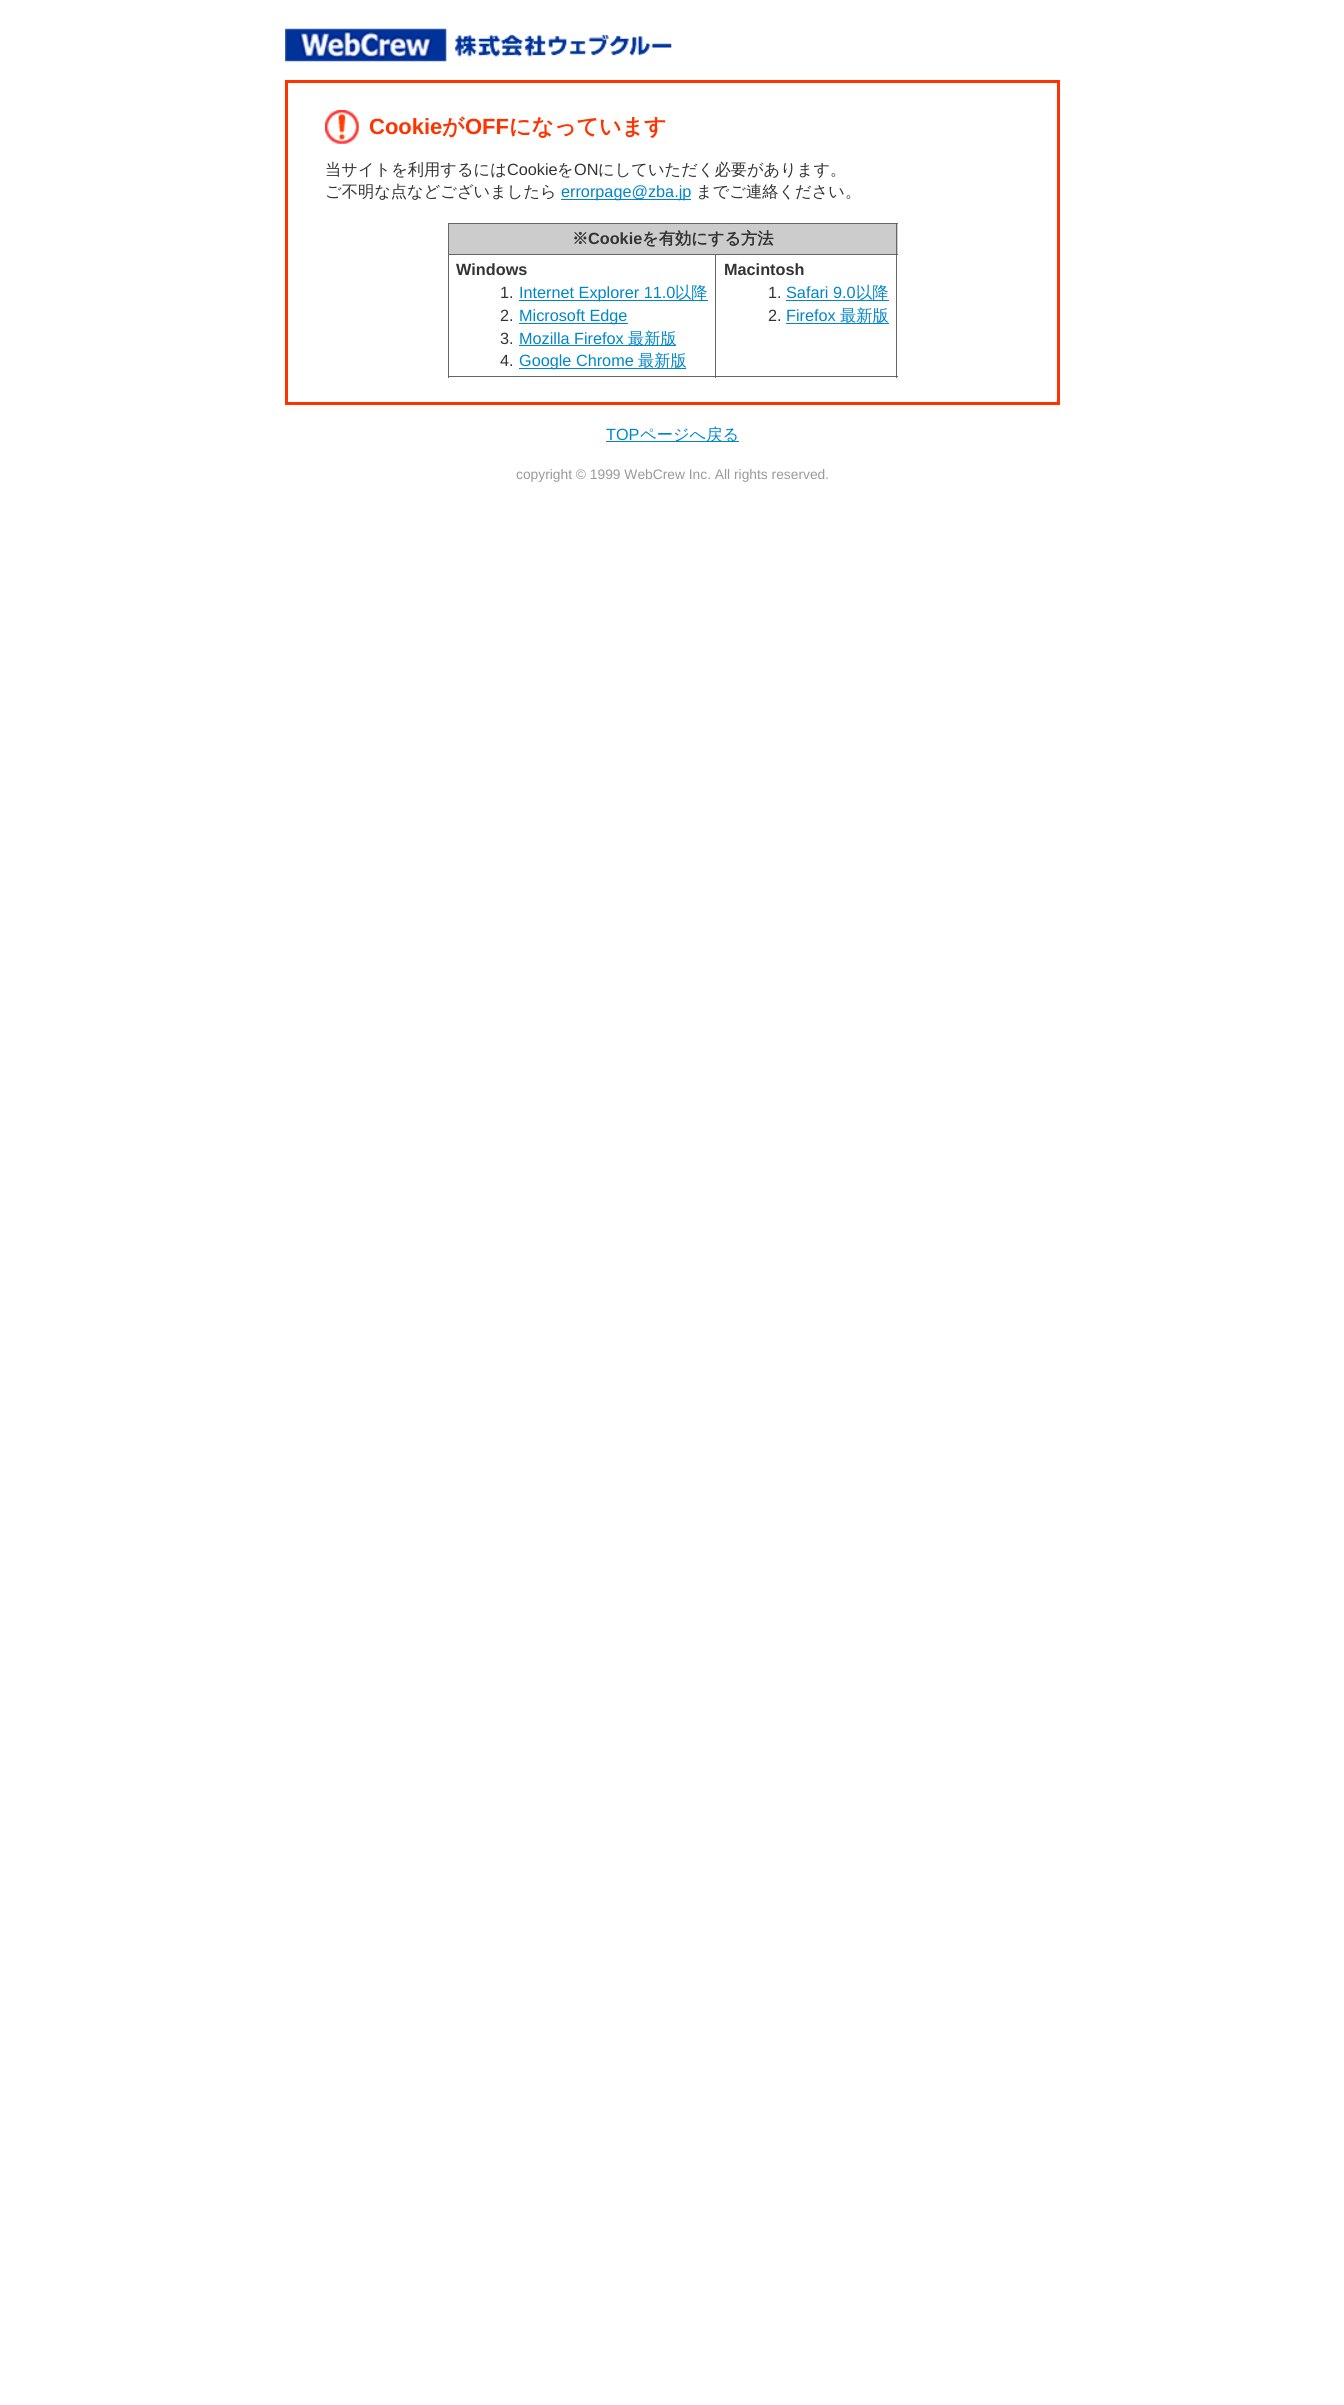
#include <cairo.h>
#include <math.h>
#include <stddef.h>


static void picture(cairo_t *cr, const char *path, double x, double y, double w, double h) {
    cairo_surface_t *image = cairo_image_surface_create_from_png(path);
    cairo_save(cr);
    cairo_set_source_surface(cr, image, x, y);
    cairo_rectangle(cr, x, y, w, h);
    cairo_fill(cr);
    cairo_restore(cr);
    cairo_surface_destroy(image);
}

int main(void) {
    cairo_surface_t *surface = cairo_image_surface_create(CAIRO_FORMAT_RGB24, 1344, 2405);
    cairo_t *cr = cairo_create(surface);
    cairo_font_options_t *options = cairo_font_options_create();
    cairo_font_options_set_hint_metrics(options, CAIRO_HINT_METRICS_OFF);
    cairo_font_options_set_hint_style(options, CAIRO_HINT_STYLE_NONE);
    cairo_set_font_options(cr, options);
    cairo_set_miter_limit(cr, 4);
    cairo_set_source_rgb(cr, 1, 1, 1);
    cairo_paint(cr);
    picture(cr, "img1.png", 285, 28, 387, 34);
    cairo_rectangle(cr, 286.5, 81.5, 772, 322);
    cairo_set_source_rgb(cr, 1, 0.2, 0);
    cairo_set_line_width(cr, 3);
    cairo_stroke(cr);
    picture(cr, "img2.png", 325, 110, 34, 34);
    cairo_select_font_face(cr, "Liberation Sans", CAIRO_FONT_SLANT_NORMAL, CAIRO_FONT_WEIGHT_BOLD);
    cairo_set_font_size(cr, 22);
    cairo_move_to(cr, 369, 134);
    cairo_show_text(cr, "Cookie");
    cairo_select_font_face(cr, "WenQuanYi Zen Hei", CAIRO_FONT_SLANT_NORMAL, CAIRO_FONT_WEIGHT_BOLD);
    cairo_move_to(cr, 442, 134);
    cairo_show_text(cr, "が");
    cairo_select_font_face(cr, "Liberation Sans", CAIRO_FONT_SLANT_NORMAL, CAIRO_FONT_WEIGHT_BOLD);
    cairo_move_to(cr, 465, 134);
    cairo_show_text(cr, "OFF");
    cairo_select_font_face(cr, "WenQuanYi Zen Hei", CAIRO_FONT_SLANT_NORMAL, CAIRO_FONT_WEIGHT_BOLD);
    cairo_move_to(cr, 509, 134);
    cairo_show_text(cr, "になっています");
    cairo_select_font_face(cr, "WenQuanYi Zen Hei Medium", CAIRO_FONT_SLANT_NORMAL, CAIRO_FONT_WEIGHT_NORMAL);
    cairo_set_font_size(cr, 16.25);
    cairo_set_source_rgb(cr, 0.2, 0.2, 0.2);
    cairo_move_to(cr, 325, 175);
    cairo_show_text(cr, "当サイトを利用するには");
    cairo_select_font_face(cr, "Liberation Sans", CAIRO_FONT_SLANT_NORMAL, CAIRO_FONT_WEIGHT_NORMAL);
    cairo_move_to(cr, 507, 175);
    cairo_show_text(cr, "Cookie");
    cairo_select_font_face(cr, "WenQuanYi Zen Hei Medium", CAIRO_FONT_SLANT_NORMAL, CAIRO_FONT_WEIGHT_NORMAL);
    cairo_move_to(cr, 557, 175);
    cairo_show_text(cr, "を");
    cairo_select_font_face(cr, "Liberation Sans", CAIRO_FONT_SLANT_NORMAL, CAIRO_FONT_WEIGHT_NORMAL);
    cairo_move_to(cr, 574, 175);
    cairo_show_text(cr, "ON");
    cairo_select_font_face(cr, "WenQuanYi Zen Hei Medium", CAIRO_FONT_SLANT_NORMAL, CAIRO_FONT_WEIGHT_NORMAL);
    cairo_move_to(cr, 598, 175);
    cairo_show_text(cr, "にしていただく必要があります。");
    cairo_move_to(cr, 325, 197);
    cairo_show_text(cr, "ご不明な点などございましたら");
    cairo_set_source_rgb(cr, 0, 0.522, 0.788);
    cairo_rectangle(cr, 561, 199, 130, 1);
    cairo_fill(cr);
    cairo_select_font_face(cr, "Liberation Sans", CAIRO_FONT_SLANT_NORMAL, CAIRO_FONT_WEIGHT_NORMAL);
    cairo_move_to(cr, 561, 197);
    cairo_show_text(cr, "errorpage@zba.jp");
    cairo_select_font_face(cr, "WenQuanYi Zen Hei Medium", CAIRO_FONT_SLANT_NORMAL, CAIRO_FONT_WEIGHT_NORMAL);
    cairo_set_source_rgb(cr, 0.2, 0.2, 0.2);
    cairo_move_to(cr, 696, 197);
    cairo_show_text(cr, "までご連絡ください。");
    cairo_set_source_rgb(cr, 0.8, 0.8, 0.8);
    cairo_rectangle(cr, 449, 224, 449, 30);
    cairo_fill(cr);
    cairo_set_source_rgb(cr, 0.4, 0.4, 0.4);
    cairo_rectangle(cr, 448, 223, 450, 1);
    cairo_fill(cr);
    cairo_rectangle(cr, 715, 254, 183, 1);
    cairo_fill(cr);
    cairo_rectangle(cr, 896, 254, 1, 124);
    cairo_fill(cr);
    cairo_rectangle(cr, 896, 223, 1, 32);
    cairo_fill(cr);
    cairo_rectangle(cr, 715, 376, 183, 1);
    cairo_fill(cr);
    cairo_rectangle(cr, 715, 254, 1, 124);
    cairo_fill(cr);
    cairo_rectangle(cr, 448, 254, 268, 1);
    cairo_fill(cr);
    cairo_rectangle(cr, 448, 376, 268, 1);
    cairo_fill(cr);
    cairo_rectangle(cr, 448, 254, 1, 124);
    cairo_fill(cr);
    cairo_rectangle(cr, 448, 223, 1, 32);
    cairo_fill(cr);
    cairo_select_font_face(cr, "WenQuanYi Zen Hei", CAIRO_FONT_SLANT_NORMAL, CAIRO_FONT_WEIGHT_BOLD);
    cairo_set_source_rgb(cr, 0.2, 0.2, 0.2);
    cairo_move_to(cr, 572, 244);
    cairo_show_text(cr, "※");
    cairo_select_font_face(cr, "Liberation Sans", CAIRO_FONT_SLANT_NORMAL, CAIRO_FONT_WEIGHT_BOLD);
    cairo_move_to(cr, 588, 244);
    cairo_show_text(cr, "Cookie");
    cairo_select_font_face(cr, "WenQuanYi Zen Hei", CAIRO_FONT_SLANT_NORMAL, CAIRO_FONT_WEIGHT_BOLD);
    cairo_move_to(cr, 642, 244);
    cairo_show_text(cr, "を有効にする方法");
    cairo_select_font_face(cr, "Liberation Sans", CAIRO_FONT_SLANT_NORMAL, CAIRO_FONT_WEIGHT_BOLD);
    cairo_move_to(cr, 456, 275);
    cairo_show_text(cr, "Windows");
    cairo_select_font_face(cr, "Liberation Sans", CAIRO_FONT_SLANT_NORMAL, CAIRO_FONT_WEIGHT_NORMAL);
    cairo_move_to(cr, 500, 298);
    cairo_show_text(cr, "1.");
    cairo_set_source_rgb(cr, 0, 0.522, 0.788);
    cairo_rectangle(cr, 519, 300, 189, 1);
    cairo_fill(cr);
    cairo_move_to(cr, 519, 298);
    cairo_show_text(cr, "Internet Explorer 11.0");
    cairo_select_font_face(cr, "WenQuanYi Zen Hei Medium", CAIRO_FONT_SLANT_NORMAL, CAIRO_FONT_WEIGHT_NORMAL);
    cairo_move_to(cr, 675, 298);
    cairo_show_text(cr, "以降");
    cairo_select_font_face(cr, "Liberation Sans", CAIRO_FONT_SLANT_NORMAL, CAIRO_FONT_WEIGHT_NORMAL);
    cairo_set_source_rgb(cr, 0.2, 0.2, 0.2);
    cairo_move_to(cr, 500, 321);
    cairo_show_text(cr, "2.");
    cairo_set_source_rgb(cr, 0, 0.522, 0.788);
    cairo_rectangle(cr, 519, 323, 109, 1);
    cairo_fill(cr);
    cairo_move_to(cr, 519, 321);
    cairo_show_text(cr, "Microsoft Edge");
    cairo_set_source_rgb(cr, 0.2, 0.2, 0.2);
    cairo_move_to(cr, 500, 344);
    cairo_show_text(cr, "3.");
    cairo_set_source_rgb(cr, 0, 0.522, 0.788);
    cairo_move_to(cr, 519, 344);
    cairo_show_text(cr, "Mozilla Firefox");
    cairo_rectangle(cr, 519, 345, 157, 1);
    cairo_fill(cr);
    cairo_select_font_face(cr, "WenQuanYi Zen Hei Medium", CAIRO_FONT_SLANT_NORMAL, CAIRO_FONT_WEIGHT_NORMAL);
    cairo_move_to(cr, 628, 344);
    cairo_show_text(cr, "最新版");
    cairo_select_font_face(cr, "Liberation Sans", CAIRO_FONT_SLANT_NORMAL, CAIRO_FONT_WEIGHT_NORMAL);
    cairo_set_source_rgb(cr, 0.2, 0.2, 0.2);
    cairo_move_to(cr, 500, 366);
    cairo_show_text(cr, "4.");
    cairo_set_source_rgb(cr, 0, 0.522, 0.788);
    cairo_rectangle(cr, 519, 368, 167, 1);
    cairo_fill(cr);
    cairo_move_to(cr, 519, 366);
    cairo_show_text(cr, "Google Chrome");
    cairo_select_font_face(cr, "WenQuanYi Zen Hei Medium", CAIRO_FONT_SLANT_NORMAL, CAIRO_FONT_WEIGHT_NORMAL);
    cairo_move_to(cr, 638, 366);
    cairo_show_text(cr, "最新版");
    cairo_select_font_face(cr, "Liberation Sans", CAIRO_FONT_SLANT_NORMAL, CAIRO_FONT_WEIGHT_BOLD);
    cairo_set_source_rgb(cr, 0.2, 0.2, 0.2);
    cairo_move_to(cr, 724, 275);
    cairo_show_text(cr, "Macintosh");
    cairo_select_font_face(cr, "Liberation Sans", CAIRO_FONT_SLANT_NORMAL, CAIRO_FONT_WEIGHT_NORMAL);
    cairo_move_to(cr, 768, 298);
    cairo_show_text(cr, "1.");
    cairo_set_source_rgb(cr, 0, 0.522, 0.788);
    cairo_move_to(cr, 786, 298);
    cairo_show_text(cr, "Safari 9.0");
    cairo_rectangle(cr, 786, 300, 103, 1);
    cairo_fill(cr);
    cairo_select_font_face(cr, "WenQuanYi Zen Hei Medium", CAIRO_FONT_SLANT_NORMAL, CAIRO_FONT_WEIGHT_NORMAL);
    cairo_move_to(cr, 856, 298);
    cairo_show_text(cr, "以降");
    cairo_select_font_face(cr, "Liberation Sans", CAIRO_FONT_SLANT_NORMAL, CAIRO_FONT_WEIGHT_NORMAL);
    cairo_set_source_rgb(cr, 0.2, 0.2, 0.2);
    cairo_move_to(cr, 768, 321);
    cairo_show_text(cr, "2.");
    cairo_set_source_rgb(cr, 0, 0.522, 0.788);
    cairo_move_to(cr, 786, 321);
    cairo_show_text(cr, "Firefox");
    cairo_rectangle(cr, 786, 323, 103, 1);
    cairo_fill(cr);
    cairo_select_font_face(cr, "WenQuanYi Zen Hei Medium", CAIRO_FONT_SLANT_NORMAL, CAIRO_FONT_WEIGHT_NORMAL);
    cairo_move_to(cr, 840, 321);
    cairo_show_text(cr, "最新版");
    cairo_select_font_face(cr, "Liberation Sans", CAIRO_FONT_SLANT_NORMAL, CAIRO_FONT_WEIGHT_NORMAL);
    cairo_move_to(cr, 606, 440);
    cairo_show_text(cr, "TOP");
    cairo_rectangle(cr, 606, 441, 133, 1);
    cairo_fill(cr);
    cairo_select_font_face(cr, "WenQuanYi Zen Hei Medium", CAIRO_FONT_SLANT_NORMAL, CAIRO_FONT_WEIGHT_NORMAL);
    cairo_move_to(cr, 640, 440);
    cairo_show_text(cr, "ページへ戻る");
    cairo_select_font_face(cr, "Liberation Sans", CAIRO_FONT_SLANT_NORMAL, CAIRO_FONT_WEIGHT_NORMAL);
    cairo_set_font_size(cr, 13.8);
    cairo_set_source_rgb(cr, 0.6, 0.6, 0.6);
    cairo_move_to(cr, 516, 479);
    cairo_show_text(cr, "copyright © 1999 WebCrew Inc. All rights reserved.");
    cairo_surface_write_to_png(surface, "page.png");
    cairo_font_options_destroy(options);
    cairo_destroy(cr);
    cairo_surface_destroy(surface);
    return 0;
}
